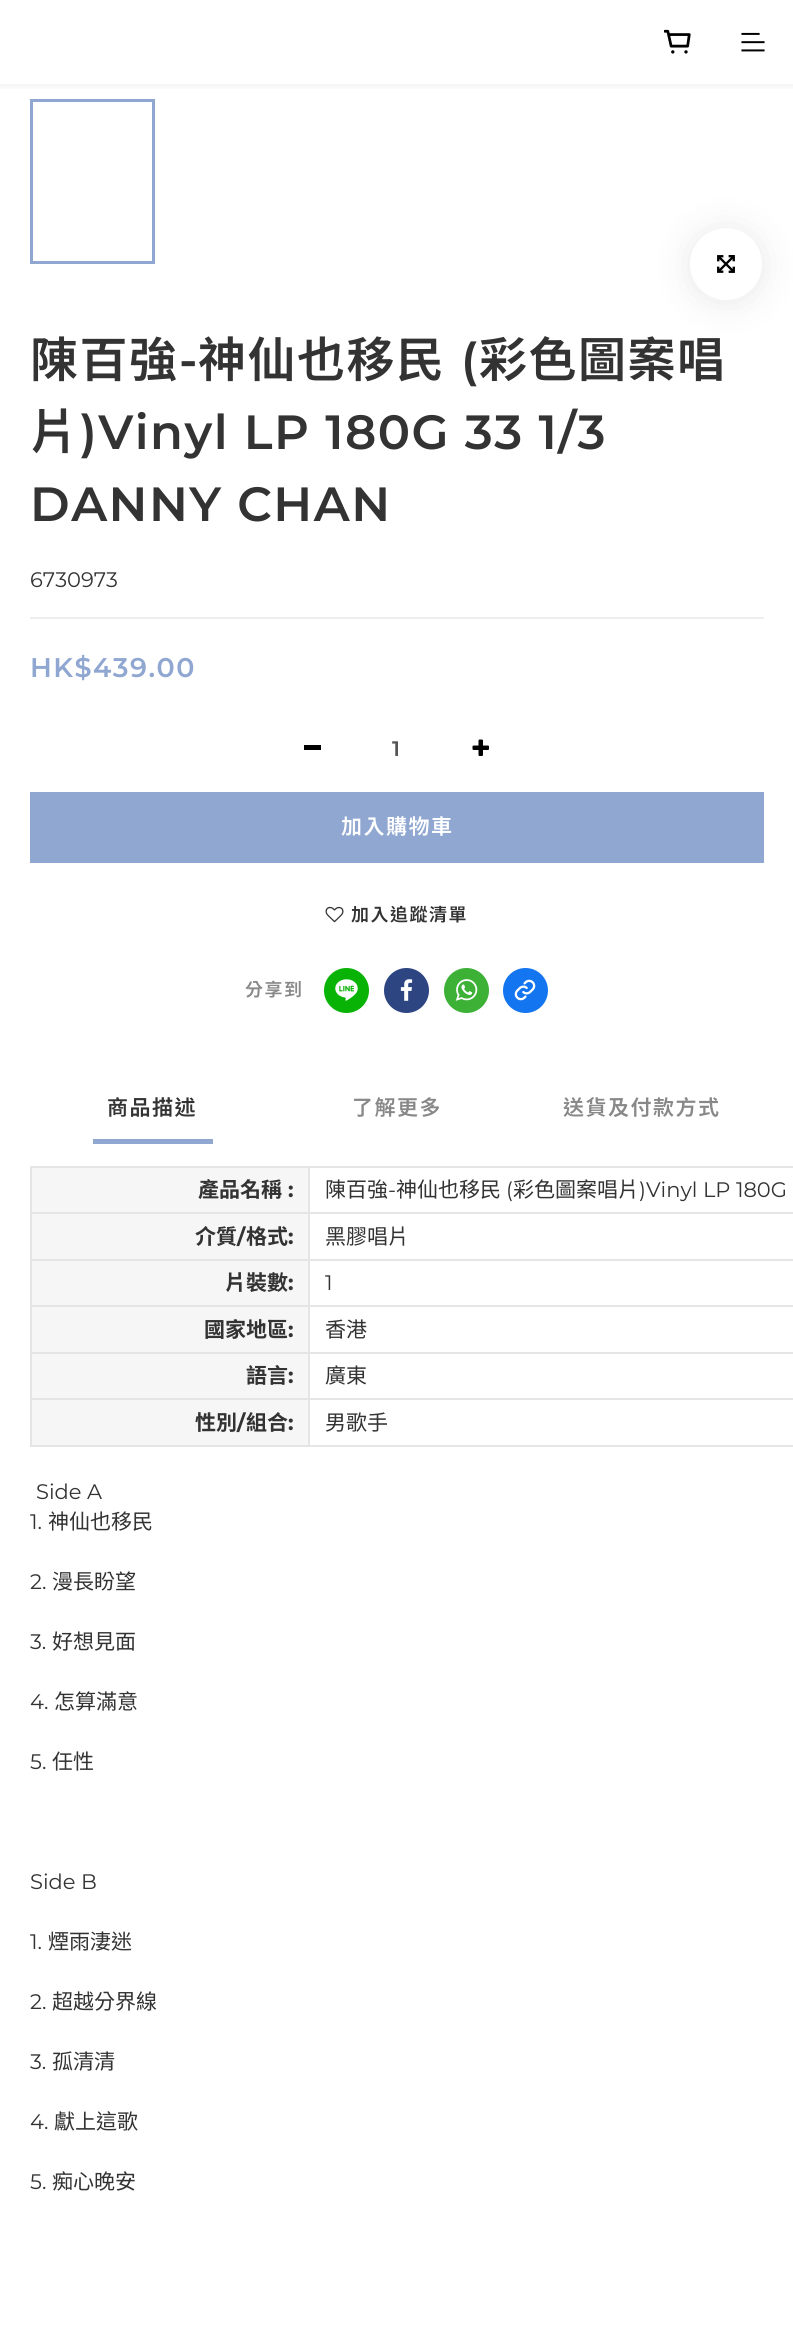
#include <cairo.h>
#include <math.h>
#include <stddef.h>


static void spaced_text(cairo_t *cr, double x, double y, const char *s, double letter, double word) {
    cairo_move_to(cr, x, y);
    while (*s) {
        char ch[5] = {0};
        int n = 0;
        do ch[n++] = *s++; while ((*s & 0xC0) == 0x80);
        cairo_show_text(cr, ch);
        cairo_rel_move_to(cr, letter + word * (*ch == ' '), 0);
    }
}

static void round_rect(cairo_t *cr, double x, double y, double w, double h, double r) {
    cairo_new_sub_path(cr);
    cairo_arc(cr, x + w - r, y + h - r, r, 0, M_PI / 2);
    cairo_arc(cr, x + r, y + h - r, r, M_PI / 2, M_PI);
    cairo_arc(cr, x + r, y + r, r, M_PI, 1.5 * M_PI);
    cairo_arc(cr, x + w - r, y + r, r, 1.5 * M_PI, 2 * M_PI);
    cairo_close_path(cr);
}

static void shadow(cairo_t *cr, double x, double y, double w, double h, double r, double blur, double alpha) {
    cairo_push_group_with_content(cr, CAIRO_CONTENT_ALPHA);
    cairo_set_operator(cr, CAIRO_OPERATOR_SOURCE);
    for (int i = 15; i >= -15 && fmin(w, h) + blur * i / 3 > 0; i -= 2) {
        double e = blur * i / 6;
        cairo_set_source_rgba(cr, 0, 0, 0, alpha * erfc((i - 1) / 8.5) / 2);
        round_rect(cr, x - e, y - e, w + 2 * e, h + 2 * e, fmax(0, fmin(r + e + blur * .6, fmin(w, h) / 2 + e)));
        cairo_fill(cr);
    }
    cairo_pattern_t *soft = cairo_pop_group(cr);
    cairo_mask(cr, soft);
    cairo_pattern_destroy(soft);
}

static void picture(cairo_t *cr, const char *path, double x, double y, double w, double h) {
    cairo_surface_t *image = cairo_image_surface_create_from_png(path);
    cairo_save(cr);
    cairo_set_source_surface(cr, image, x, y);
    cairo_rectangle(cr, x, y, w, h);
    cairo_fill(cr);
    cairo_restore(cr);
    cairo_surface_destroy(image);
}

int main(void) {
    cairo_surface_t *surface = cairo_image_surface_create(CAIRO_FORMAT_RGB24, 793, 2340);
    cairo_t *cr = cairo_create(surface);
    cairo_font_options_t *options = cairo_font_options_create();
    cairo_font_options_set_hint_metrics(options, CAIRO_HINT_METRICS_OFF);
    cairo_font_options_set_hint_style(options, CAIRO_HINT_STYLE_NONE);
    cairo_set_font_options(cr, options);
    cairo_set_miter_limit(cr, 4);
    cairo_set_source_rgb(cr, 1, 1, 1);
    cairo_paint(cr);
    cairo_rectangle(cr, 31.5, 100.5, 122, 162);
    cairo_set_source_rgb(cr, 0.565, 0.655, 0.82);
    cairo_set_line_width(cr, 3);
    cairo_stroke(cr);
    cairo_save(cr);
    cairo_rectangle(cr, 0, 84, 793, 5);
    cairo_clip(cr);
    cairo_set_source_rgb(cr, 0, 0, 0);
    shadow(cr, 0, 3, 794, 84, 0, 4.5, 0.06);
    cairo_restore(cr);
    picture(cr, "img1.png", 663, 29, 28, 25);
    picture(cr, "img2.png", 741, 32, 24, 20);
    cairo_set_source_rgb(cr, 0, 0, 0);
    shadow(cr, 690, 230, 72, 72, 36, 18, 0.09);
    cairo_set_source_rgb(cr, 1, 1, 1);
    cairo_arc(cr, 726, 264, 36, 0, 2 * M_PI);
    cairo_fill(cr);
    picture(cr, "img3.png", 717, 255, 18, 18);
    cairo_select_font_face(cr, "Noto Sans TC SemiBold", CAIRO_FONT_SLANT_NORMAL, CAIRO_FONT_WEIGHT_NORMAL);
    cairo_set_font_size(cr, 48);
    cairo_set_source_rgb(cr, 0.2, 0.2, 0.2);
    spaced_text(cr, 30, 377, "陳百強", 1.5, 0);
    cairo_select_font_face(cr, "Montserrat SemiBold", CAIRO_FONT_SLANT_NORMAL, CAIRO_FONT_WEIGHT_NORMAL);
    spaced_text(cr, 179, 377, "-", 1.5, 0);
    cairo_select_font_face(cr, "Noto Sans TC SemiBold", CAIRO_FONT_SLANT_NORMAL, CAIRO_FONT_WEIGHT_NORMAL);
    spaced_text(cr, 198, 377, "神仙也移民", 1.5, 0);
    cairo_select_font_face(cr, "Montserrat SemiBold", CAIRO_FONT_SLANT_NORMAL, CAIRO_FONT_WEIGHT_NORMAL);
    spaced_text(cr, 461, 377, "(", 1.5, 0);
    cairo_select_font_face(cr, "Noto Sans TC SemiBold", CAIRO_FONT_SLANT_NORMAL, CAIRO_FONT_WEIGHT_NORMAL);
    spaced_text(cr, 479, 377, "彩色圖案唱", 1.5, 0);
    spaced_text(cr, 30, 449, "片", 1.5, 0);
    cairo_select_font_face(cr, "Montserrat SemiBold", CAIRO_FONT_SLANT_NORMAL, CAIRO_FONT_WEIGHT_NORMAL);
    spaced_text(cr, 80, 449, ")Vinyl LP 180G 33 1/3", 1.5, 0);
    spaced_text(cr, 30, 521, "DANNY CHAN", 1.5, 0);
    cairo_select_font_face(cr, "Montserrat", CAIRO_FONT_SLANT_NORMAL, CAIRO_FONT_WEIGHT_NORMAL);
    cairo_set_font_size(cr, 21);
    cairo_move_to(cr, 30, 587);
    cairo_show_text(cr, "6730973");
    cairo_set_source_rgb(cr, 0.933, 0.933, 0.933);
    cairo_rectangle(cr, 30, 617, 734, 2);
    cairo_fill(cr);
    cairo_select_font_face(cr, "Montserrat SemiBold", CAIRO_FONT_SLANT_NORMAL, CAIRO_FONT_WEIGHT_NORMAL);
    cairo_set_font_size(cr, 27);
    cairo_set_source_rgb(cr, 0.565, 0.655, 0.82);
    spaced_text(cr, 30, 677, "HK$439.00", 1.5, 0);
    cairo_set_source_rgb(cr, 0, 0, 0);
    cairo_rectangle(cr, 304, 745, 17, 5);
    cairo_fill(cr);
    cairo_set_font_size(cr, 21);
    cairo_set_source_rgb(cr, 0.333, 0.333, 0.333);
    spaced_text(cr, 392, 756, "1", 1.5, 0);
    picture(cr, "img4.png", 472, 739, 17, 17);
    cairo_set_source_rgb(cr, 0.565, 0.655, 0.82);
    cairo_rectangle(cr, 30, 792, 734, 71);
    cairo_fill(cr);
    cairo_select_font_face(cr, "Noto Sans TC SemiBold", CAIRO_FONT_SLANT_NORMAL, CAIRO_FONT_WEIGHT_NORMAL);
    cairo_set_source_rgb(cr, 1, 1, 1);
    spaced_text(cr, 341, 834, "加入購物車", 1.5, 0);
    picture(cr, "img5.png", 325, 906, 19, 17);
    cairo_set_font_size(cr, 18);
    cairo_set_source_rgb(cr, 0.2, 0.2, 0.2);
    spaced_text(cr, 351, 921, "加入追蹤清單", 1.5, 0);
    cairo_set_source_rgb(cr, 0.533, 0.533, 0.533);
    spaced_text(cr, 245, 996, "分享到", 1.5, 0);
    cairo_set_source_rgb(cr, 0.035, 0.702, 0.02);
    cairo_new_path(cr);
    cairo_arc(cr, 346.5, 990.5, 22.5, 0, 2 * M_PI);
    cairo_fill(cr);
    picture(cr, "img6.png", 335, 979, 23, 22);
    cairo_set_source_rgb(cr, 0.176, 0.275, 0.51);
    cairo_arc(cr, 406.5, 990.5, 22.5, 0, 2 * M_PI);
    cairo_fill(cr);
    picture(cr, "img7.png", 400, 979, 13, 22);
    cairo_set_source_rgb(cr, 0.235, 0.694, 0.212);
    cairo_arc(cr, 466.5, 990.5, 22.5, 0, 2 * M_PI);
    cairo_fill(cr);
    picture(cr, "img8.png", 455, 979, 23, 22);
    cairo_set_source_rgb(cr, 0.082, 0.459, 0.941);
    cairo_arc(cr, 525.5, 990.5, 22.5, 0, 2 * M_PI);
    cairo_fill(cr);
    picture(cr, "img9.png", 514, 979, 22, 22);
    cairo_set_font_size(cr, 21);
    cairo_set_source_rgb(cr, 0.2, 0.2, 0.2);
    spaced_text(cr, 107, 1115, "商品描述", 1.5, 0);
    cairo_set_source_rgb(cr, 0.565, 0.655, 0.82);
    cairo_rectangle(cr, 93, 1139, 120, 5);
    cairo_fill(cr);
    cairo_set_source_rgb(cr, 0.533, 0.533, 0.533);
    spaced_text(cr, 352, 1115, "了解更多", 1.5, 0);
    spaced_text(cr, 563, 1115, "送貨及付款方式", 1.5, 0);
    cairo_set_source_rgb(cr, 0.961, 0.961, 0.961);
    cairo_rectangle(cr, 32, 1168, 276, 44);
    cairo_fill(cr);
    cairo_set_source_rgb(cr, 0.898, 0.898, 0.898);
    cairo_rectangle(cr, 308, 1166, 485, 2);
    cairo_fill(cr);
    cairo_rectangle(cr, 308, 1212, 485, 2);
    cairo_fill(cr);
    cairo_rectangle(cr, 308, 1259, 485, 2);
    cairo_fill(cr);
    cairo_rectangle(cr, 308, 1305, 485, 2);
    cairo_fill(cr);
    cairo_rectangle(cr, 308, 1352, 485, 2);
    cairo_fill(cr);
    cairo_rectangle(cr, 308, 1398, 485, 2);
    cairo_fill(cr);
    cairo_rectangle(cr, 308, 1445, 485, 2);
    cairo_fill(cr);
    cairo_rectangle(cr, 308, 1398, 2, 48);
    cairo_fill(cr);
    cairo_rectangle(cr, 30, 1398, 279, 2);
    cairo_fill(cr);
    cairo_rectangle(cr, 308, 1352, 2, 48);
    cairo_fill(cr);
    cairo_rectangle(cr, 30, 1352, 279, 2);
    cairo_fill(cr);
    cairo_rectangle(cr, 308, 1305, 2, 48);
    cairo_fill(cr);
    cairo_rectangle(cr, 30, 1305, 279, 2);
    cairo_fill(cr);
    cairo_rectangle(cr, 308, 1259, 2, 48);
    cairo_fill(cr);
    cairo_rectangle(cr, 30, 1259, 279, 2);
    cairo_fill(cr);
    cairo_rectangle(cr, 308, 1212, 2, 48);
    cairo_fill(cr);
    cairo_rectangle(cr, 30, 1212, 279, 2);
    cairo_fill(cr);
    cairo_rectangle(cr, 308, 1166, 2, 48);
    cairo_fill(cr);
    cairo_rectangle(cr, 30, 1166, 279, 2);
    cairo_fill(cr);
    cairo_rectangle(cr, 30, 1445, 279, 2);
    cairo_fill(cr);
    cairo_rectangle(cr, 30, 1398, 2, 48);
    cairo_fill(cr);
    cairo_rectangle(cr, 30, 1352, 2, 48);
    cairo_fill(cr);
    cairo_rectangle(cr, 30, 1305, 2, 48);
    cairo_fill(cr);
    cairo_rectangle(cr, 30, 1259, 2, 48);
    cairo_fill(cr);
    cairo_rectangle(cr, 30, 1212, 2, 48);
    cairo_fill(cr);
    cairo_rectangle(cr, 30, 1166, 2, 48);
    cairo_fill(cr);
    cairo_select_font_face(cr, "Noto Sans TC", CAIRO_FONT_SLANT_NORMAL, CAIRO_FONT_WEIGHT_BOLD);
    cairo_set_source_rgb(cr, 0.2, 0.2, 0.2);
    cairo_move_to(cr, 198, 1197);
    cairo_show_text(cr, "產品名稱");
    cairo_select_font_face(cr, "Montserrat", CAIRO_FONT_SLANT_NORMAL, CAIRO_FONT_WEIGHT_BOLD);
    cairo_move_to(cr, 288, 1197);
    cairo_show_text(cr, ":");
    cairo_select_font_face(cr, "Noto Sans TC", CAIRO_FONT_SLANT_NORMAL, CAIRO_FONT_WEIGHT_NORMAL);
    cairo_move_to(cr, 325, 1197);
    cairo_show_text(cr, "陳百強");
    cairo_select_font_face(cr, "Montserrat", CAIRO_FONT_SLANT_NORMAL, CAIRO_FONT_WEIGHT_NORMAL);
    cairo_move_to(cr, 388, 1197);
    cairo_show_text(cr, "-");
    cairo_select_font_face(cr, "Noto Sans TC", CAIRO_FONT_SLANT_NORMAL, CAIRO_FONT_WEIGHT_NORMAL);
    cairo_move_to(cr, 396, 1197);
    cairo_show_text(cr, "神仙也移民");
    cairo_select_font_face(cr, "Montserrat", CAIRO_FONT_SLANT_NORMAL, CAIRO_FONT_WEIGHT_NORMAL);
    cairo_move_to(cr, 506, 1197);
    cairo_show_text(cr, "(");
    cairo_select_font_face(cr, "Noto Sans TC", CAIRO_FONT_SLANT_NORMAL, CAIRO_FONT_WEIGHT_NORMAL);
    cairo_move_to(cr, 513, 1197);
    cairo_show_text(cr, "彩色圖案唱片");
    cairo_select_font_face(cr, "Montserrat", CAIRO_FONT_SLANT_NORMAL, CAIRO_FONT_WEIGHT_NORMAL);
    cairo_move_to(cr, 639, 1197);
    cairo_show_text(cr, ")Vinyl LP 180G");
    cairo_set_source_rgb(cr, 0.961, 0.961, 0.961);
    cairo_rectangle(cr, 32, 1214, 276, 45);
    cairo_fill(cr);
    cairo_select_font_face(cr, "Noto Sans TC", CAIRO_FONT_SLANT_NORMAL, CAIRO_FONT_WEIGHT_BOLD);
    cairo_set_source_rgb(cr, 0.2, 0.2, 0.2);
    cairo_move_to(cr, 195, 1244);
    cairo_show_text(cr, "介質");
    cairo_select_font_face(cr, "Montserrat", CAIRO_FONT_SLANT_NORMAL, CAIRO_FONT_WEIGHT_BOLD);
    cairo_move_to(cr, 237, 1244);
    cairo_show_text(cr, "/");
    cairo_select_font_face(cr, "Noto Sans TC", CAIRO_FONT_SLANT_NORMAL, CAIRO_FONT_WEIGHT_BOLD);
    cairo_move_to(cr, 246, 1244);
    cairo_show_text(cr, "格式");
    cairo_select_font_face(cr, "Montserrat", CAIRO_FONT_SLANT_NORMAL, CAIRO_FONT_WEIGHT_BOLD);
    cairo_move_to(cr, 288, 1244);
    cairo_show_text(cr, ":");
    cairo_select_font_face(cr, "Noto Sans TC", CAIRO_FONT_SLANT_NORMAL, CAIRO_FONT_WEIGHT_NORMAL);
    cairo_move_to(cr, 325, 1244);
    cairo_show_text(cr, "黑膠唱片");
    cairo_set_source_rgb(cr, 0.961, 0.961, 0.961);
    cairo_rectangle(cr, 32, 1261, 276, 44);
    cairo_fill(cr);
    cairo_select_font_face(cr, "Noto Sans TC", CAIRO_FONT_SLANT_NORMAL, CAIRO_FONT_WEIGHT_BOLD);
    cairo_set_source_rgb(cr, 0.2, 0.2, 0.2);
    cairo_move_to(cr, 225, 1290);
    cairo_show_text(cr, "片裝數");
    cairo_select_font_face(cr, "Montserrat", CAIRO_FONT_SLANT_NORMAL, CAIRO_FONT_WEIGHT_BOLD);
    cairo_move_to(cr, 288, 1290);
    cairo_show_text(cr, ":");
    cairo_select_font_face(cr, "Montserrat", CAIRO_FONT_SLANT_NORMAL, CAIRO_FONT_WEIGHT_NORMAL);
    cairo_move_to(cr, 325, 1290);
    cairo_show_text(cr, "1");
    cairo_set_source_rgb(cr, 0.961, 0.961, 0.961);
    cairo_rectangle(cr, 32, 1307, 276, 45);
    cairo_fill(cr);
    cairo_select_font_face(cr, "Noto Sans TC", CAIRO_FONT_SLANT_NORMAL, CAIRO_FONT_WEIGHT_BOLD);
    cairo_set_source_rgb(cr, 0.2, 0.2, 0.2);
    cairo_move_to(cr, 204, 1337);
    cairo_show_text(cr, "國家地區");
    cairo_select_font_face(cr, "Montserrat", CAIRO_FONT_SLANT_NORMAL, CAIRO_FONT_WEIGHT_BOLD);
    cairo_move_to(cr, 288, 1337);
    cairo_show_text(cr, ":");
    cairo_select_font_face(cr, "Noto Sans TC", CAIRO_FONT_SLANT_NORMAL, CAIRO_FONT_WEIGHT_NORMAL);
    cairo_move_to(cr, 325, 1337);
    cairo_show_text(cr, "香港");
    cairo_set_source_rgb(cr, 0.961, 0.961, 0.961);
    cairo_rectangle(cr, 32, 1354, 276, 44);
    cairo_fill(cr);
    cairo_select_font_face(cr, "Noto Sans TC", CAIRO_FONT_SLANT_NORMAL, CAIRO_FONT_WEIGHT_BOLD);
    cairo_set_source_rgb(cr, 0.2, 0.2, 0.2);
    cairo_move_to(cr, 246, 1383);
    cairo_show_text(cr, "語言");
    cairo_select_font_face(cr, "Montserrat", CAIRO_FONT_SLANT_NORMAL, CAIRO_FONT_WEIGHT_BOLD);
    cairo_move_to(cr, 288, 1383);
    cairo_show_text(cr, ":");
    cairo_select_font_face(cr, "Noto Sans TC", CAIRO_FONT_SLANT_NORMAL, CAIRO_FONT_WEIGHT_NORMAL);
    cairo_move_to(cr, 325, 1383);
    cairo_show_text(cr, "廣東");
    cairo_set_source_rgb(cr, 0.961, 0.961, 0.961);
    cairo_rectangle(cr, 32, 1400, 276, 45);
    cairo_fill(cr);
    cairo_select_font_face(cr, "Noto Sans TC", CAIRO_FONT_SLANT_NORMAL, CAIRO_FONT_WEIGHT_BOLD);
    cairo_set_source_rgb(cr, 0.2, 0.2, 0.2);
    cairo_move_to(cr, 195, 1430);
    cairo_show_text(cr, "性別");
    cairo_select_font_face(cr, "Montserrat", CAIRO_FONT_SLANT_NORMAL, CAIRO_FONT_WEIGHT_BOLD);
    cairo_move_to(cr, 237, 1430);
    cairo_show_text(cr, "/");
    cairo_select_font_face(cr, "Noto Sans TC", CAIRO_FONT_SLANT_NORMAL, CAIRO_FONT_WEIGHT_BOLD);
    cairo_move_to(cr, 246, 1430);
    cairo_show_text(cr, "組合");
    cairo_select_font_face(cr, "Montserrat", CAIRO_FONT_SLANT_NORMAL, CAIRO_FONT_WEIGHT_BOLD);
    cairo_move_to(cr, 288, 1430);
    cairo_show_text(cr, ":");
    cairo_select_font_face(cr, "Noto Sans TC", CAIRO_FONT_SLANT_NORMAL, CAIRO_FONT_WEIGHT_NORMAL);
    cairo_move_to(cr, 325, 1430);
    cairo_show_text(cr, "男歌手");
    cairo_select_font_face(cr, "Montserrat", CAIRO_FONT_SLANT_NORMAL, CAIRO_FONT_WEIGHT_NORMAL);
    cairo_move_to(cr, 36, 1499);
    cairo_show_text(cr, "Side A");
    cairo_move_to(cr, 30, 1529);
    cairo_show_text(cr, "1.");
    cairo_select_font_face(cr, "Noto Sans TC", CAIRO_FONT_SLANT_NORMAL, CAIRO_FONT_WEIGHT_NORMAL);
    cairo_move_to(cr, 48, 1529);
    cairo_show_text(cr, "神仙也移民");
    cairo_select_font_face(cr, "Montserrat", CAIRO_FONT_SLANT_NORMAL, CAIRO_FONT_WEIGHT_NORMAL);
    cairo_move_to(cr, 30, 1589);
    cairo_show_text(cr, "2.");
    cairo_select_font_face(cr, "Noto Sans TC", CAIRO_FONT_SLANT_NORMAL, CAIRO_FONT_WEIGHT_NORMAL);
    cairo_move_to(cr, 52, 1589);
    cairo_show_text(cr, "漫長盼望");
    cairo_select_font_face(cr, "Montserrat", CAIRO_FONT_SLANT_NORMAL, CAIRO_FONT_WEIGHT_NORMAL);
    cairo_move_to(cr, 30, 1649);
    cairo_show_text(cr, "3.");
    cairo_select_font_face(cr, "Noto Sans TC", CAIRO_FONT_SLANT_NORMAL, CAIRO_FONT_WEIGHT_NORMAL);
    cairo_move_to(cr, 52, 1649);
    cairo_show_text(cr, "好想見面");
    cairo_select_font_face(cr, "Montserrat", CAIRO_FONT_SLANT_NORMAL, CAIRO_FONT_WEIGHT_NORMAL);
    cairo_move_to(cr, 30, 1709);
    cairo_show_text(cr, "4.");
    cairo_select_font_face(cr, "Noto Sans TC", CAIRO_FONT_SLANT_NORMAL, CAIRO_FONT_WEIGHT_NORMAL);
    cairo_move_to(cr, 54, 1709);
    cairo_show_text(cr, "怎算滿意");
    cairo_select_font_face(cr, "Montserrat", CAIRO_FONT_SLANT_NORMAL, CAIRO_FONT_WEIGHT_NORMAL);
    cairo_move_to(cr, 30, 1769);
    cairo_show_text(cr, "5.");
    cairo_select_font_face(cr, "Noto Sans TC", CAIRO_FONT_SLANT_NORMAL, CAIRO_FONT_WEIGHT_NORMAL);
    cairo_move_to(cr, 52, 1769);
    cairo_show_text(cr, "任性");
    cairo_select_font_face(cr, "Montserrat", CAIRO_FONT_SLANT_NORMAL, CAIRO_FONT_WEIGHT_NORMAL);
    cairo_move_to(cr, 30, 1889);
    cairo_show_text(cr, "Side B");
    cairo_move_to(cr, 30, 1949);
    cairo_show_text(cr, "1.");
    cairo_select_font_face(cr, "Noto Sans TC", CAIRO_FONT_SLANT_NORMAL, CAIRO_FONT_WEIGHT_NORMAL);
    cairo_move_to(cr, 48, 1949);
    cairo_show_text(cr, "煙雨淒迷");
    cairo_select_font_face(cr, "Montserrat", CAIRO_FONT_SLANT_NORMAL, CAIRO_FONT_WEIGHT_NORMAL);
    cairo_move_to(cr, 30, 2009);
    cairo_show_text(cr, "2.");
    cairo_select_font_face(cr, "Noto Sans TC", CAIRO_FONT_SLANT_NORMAL, CAIRO_FONT_WEIGHT_NORMAL);
    cairo_move_to(cr, 52, 2009);
    cairo_show_text(cr, "超越分界線");
    cairo_select_font_face(cr, "Montserrat", CAIRO_FONT_SLANT_NORMAL, CAIRO_FONT_WEIGHT_NORMAL);
    cairo_move_to(cr, 30, 2069);
    cairo_show_text(cr, "3.");
    cairo_select_font_face(cr, "Noto Sans TC", CAIRO_FONT_SLANT_NORMAL, CAIRO_FONT_WEIGHT_NORMAL);
    cairo_move_to(cr, 52, 2069);
    cairo_show_text(cr, "孤清清");
    cairo_select_font_face(cr, "Montserrat", CAIRO_FONT_SLANT_NORMAL, CAIRO_FONT_WEIGHT_NORMAL);
    cairo_move_to(cr, 30, 2129);
    cairo_show_text(cr, "4.");
    cairo_select_font_face(cr, "Noto Sans TC", CAIRO_FONT_SLANT_NORMAL, CAIRO_FONT_WEIGHT_NORMAL);
    cairo_move_to(cr, 54, 2129);
    cairo_show_text(cr, "獻上這歌");
    cairo_select_font_face(cr, "Montserrat", CAIRO_FONT_SLANT_NORMAL, CAIRO_FONT_WEIGHT_NORMAL);
    cairo_move_to(cr, 30, 2189);
    cairo_show_text(cr, "5.");
    cairo_select_font_face(cr, "Noto Sans TC", CAIRO_FONT_SLANT_NORMAL, CAIRO_FONT_WEIGHT_NORMAL);
    cairo_move_to(cr, 52, 2189);
    cairo_show_text(cr, "痴心晚安");
    cairo_surface_write_to_png(surface, "page.png");
    cairo_font_options_destroy(options);
    cairo_destroy(cr);
    cairo_surface_destroy(surface);
    return 0;
}
